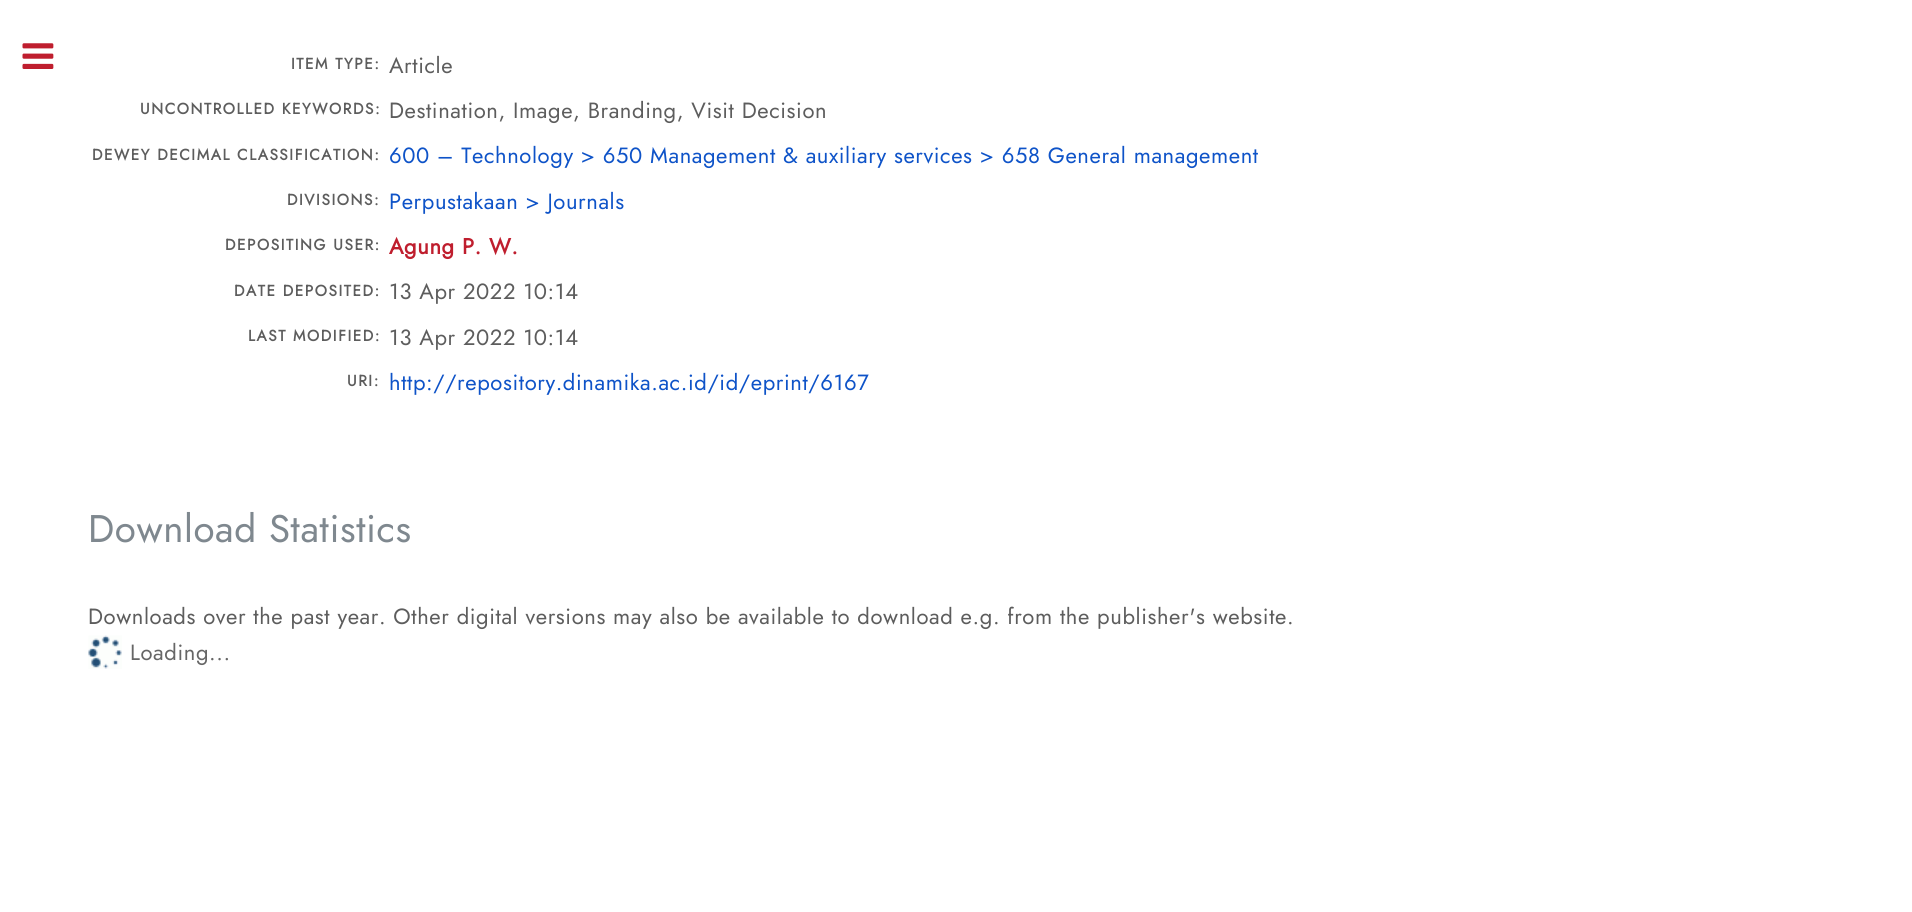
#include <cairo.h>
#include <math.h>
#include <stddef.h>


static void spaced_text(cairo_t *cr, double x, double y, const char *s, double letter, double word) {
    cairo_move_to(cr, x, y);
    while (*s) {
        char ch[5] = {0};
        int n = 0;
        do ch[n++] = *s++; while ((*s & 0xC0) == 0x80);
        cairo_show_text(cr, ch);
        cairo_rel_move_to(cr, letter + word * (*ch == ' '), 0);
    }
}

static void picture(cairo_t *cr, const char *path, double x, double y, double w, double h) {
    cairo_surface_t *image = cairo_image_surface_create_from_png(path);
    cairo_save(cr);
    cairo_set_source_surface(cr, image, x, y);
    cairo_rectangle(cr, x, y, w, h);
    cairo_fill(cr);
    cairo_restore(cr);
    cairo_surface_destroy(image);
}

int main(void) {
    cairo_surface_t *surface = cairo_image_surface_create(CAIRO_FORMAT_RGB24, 1912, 912);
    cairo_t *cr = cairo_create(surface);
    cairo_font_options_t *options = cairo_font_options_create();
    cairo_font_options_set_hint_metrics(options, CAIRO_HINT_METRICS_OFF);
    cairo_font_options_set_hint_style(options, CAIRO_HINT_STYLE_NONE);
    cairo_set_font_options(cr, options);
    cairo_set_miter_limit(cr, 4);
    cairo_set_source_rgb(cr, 1, 1, 1);
    cairo_paint(cr);
    picture(cr, "img1.png", 22, 43, 32, 26);
    cairo_select_font_face(cr, "Jost", CAIRO_FONT_SLANT_NORMAL, CAIRO_FONT_WEIGHT_BOLD);
    cairo_set_font_size(cr, 15.4);
    cairo_set_source_rgb(cr, 0.365, 0.365, 0.365);
    spaced_text(cr, 291, 69, "ITEM TYPE:", 1.55, 0);
    cairo_select_font_face(cr, "Jost", CAIRO_FONT_SLANT_NORMAL, CAIRO_FONT_WEIGHT_NORMAL);
    cairo_set_font_size(cr, 22);
    spaced_text(cr, 389, 73, "Article", 0.6, 0);
    cairo_select_font_face(cr, "Jost", CAIRO_FONT_SLANT_NORMAL, CAIRO_FONT_WEIGHT_BOLD);
    cairo_set_font_size(cr, 15.4);
    spaced_text(cr, 140, 114, "UNCONTROLLED KEYWORDS:", 1.55, 0);
    cairo_select_font_face(cr, "Jost", CAIRO_FONT_SLANT_NORMAL, CAIRO_FONT_WEIGHT_NORMAL);
    cairo_set_font_size(cr, 22);
    spaced_text(cr, 389, 118, "Destination, Image, Branding, Visit Decision", 0.6, 0);
    cairo_select_font_face(cr, "Jost", CAIRO_FONT_SLANT_NORMAL, CAIRO_FONT_WEIGHT_BOLD);
    cairo_set_font_size(cr, 15.4);
    spaced_text(cr, 92, 160, "DEWEY DECIMAL CLASSIFICATION:", 1.55, 0);
    cairo_select_font_face(cr, "Jost", CAIRO_FONT_SLANT_NORMAL, CAIRO_FONT_WEIGHT_NORMAL);
    cairo_set_font_size(cr, 22);
    cairo_set_source_rgb(cr, 0.055, 0.325, 0.784);
    spaced_text(cr, 389, 163, "600 – Technology > 650 Management & auxiliary services > 658 General management", 0.6, 0);
    cairo_select_font_face(cr, "Jost", CAIRO_FONT_SLANT_NORMAL, CAIRO_FONT_WEIGHT_BOLD);
    cairo_set_font_size(cr, 15.4);
    cairo_set_source_rgb(cr, 0.365, 0.365, 0.365);
    spaced_text(cr, 287, 205, "DIVISIONS:", 1.55, 0);
    cairo_select_font_face(cr, "Jost", CAIRO_FONT_SLANT_NORMAL, CAIRO_FONT_WEIGHT_NORMAL);
    cairo_set_font_size(cr, 22);
    cairo_set_source_rgb(cr, 0.055, 0.325, 0.784);
    spaced_text(cr, 389, 209, "Perpustakaan > Journals", 0.6, 0);
    cairo_select_font_face(cr, "Jost", CAIRO_FONT_SLANT_NORMAL, CAIRO_FONT_WEIGHT_BOLD);
    cairo_set_font_size(cr, 15.4);
    cairo_set_source_rgb(cr, 0.365, 0.365, 0.365);
    spaced_text(cr, 225, 250, "DEPOSITING USER:", 1.55, 0);
    cairo_set_font_size(cr, 22);
    cairo_set_source_rgb(cr, 0.749, 0.118, 0.18);
    spaced_text(cr, 389, 254, "Agung P. W.", 0.6, 0);
    cairo_set_font_size(cr, 15.4);
    cairo_set_source_rgb(cr, 0.365, 0.365, 0.365);
    spaced_text(cr, 234, 296, "DATE DEPOSITED:", 1.55, 0);
    cairo_select_font_face(cr, "Jost", CAIRO_FONT_SLANT_NORMAL, CAIRO_FONT_WEIGHT_NORMAL);
    cairo_set_font_size(cr, 22);
    spaced_text(cr, 389, 299, "13 Apr 2022 10:14", 0.6, 0);
    cairo_select_font_face(cr, "Jost", CAIRO_FONT_SLANT_NORMAL, CAIRO_FONT_WEIGHT_BOLD);
    cairo_set_font_size(cr, 15.4);
    spaced_text(cr, 248, 341, "LAST MODIFIED:", 1.55, 0);
    cairo_select_font_face(cr, "Jost", CAIRO_FONT_SLANT_NORMAL, CAIRO_FONT_WEIGHT_NORMAL);
    cairo_set_font_size(cr, 22);
    spaced_text(cr, 389, 345, "13 Apr 2022 10:14", 0.6, 0);
    cairo_select_font_face(cr, "Jost", CAIRO_FONT_SLANT_NORMAL, CAIRO_FONT_WEIGHT_BOLD);
    cairo_set_font_size(cr, 15.4);
    spaced_text(cr, 347, 386, "URI:", 1.55, 0);
    cairo_select_font_face(cr, "Jost", CAIRO_FONT_SLANT_NORMAL, CAIRO_FONT_WEIGHT_NORMAL);
    cairo_set_font_size(cr, 22);
    cairo_set_source_rgb(cr, 0.055, 0.325, 0.784);
    spaced_text(cr, 389, 390, "http://repository.dinamika.ac.id/id/eprint/6167", 0.6, 0);
    cairo_set_font_size(cr, 38.5);
    cairo_set_source_rgb(cr, 0.498, 0.533, 0.561);
    spaced_text(cr, 88, 542, "Download Statistics", 0.6, 0);
    cairo_set_font_size(cr, 22);
    cairo_set_source_rgb(cr, 0.365, 0.365, 0.365);
    spaced_text(cr, 88, 624, "Downloads over the past year. Other digital versions may also be available to download e.g. from the publisher's website.", 0.6, 0);
    picture(cr, "img2.png", 88, 635, 34, 34);
    cairo_set_source_rgb(cr, 0.4, 0.4, 0.4);
    spaced_text(cr, 130, 660, "Loading...", 0.6, 0);
    cairo_surface_write_to_png(surface, "page.png");
    cairo_font_options_destroy(options);
    cairo_destroy(cr);
    cairo_surface_destroy(surface);
    return 0;
}
